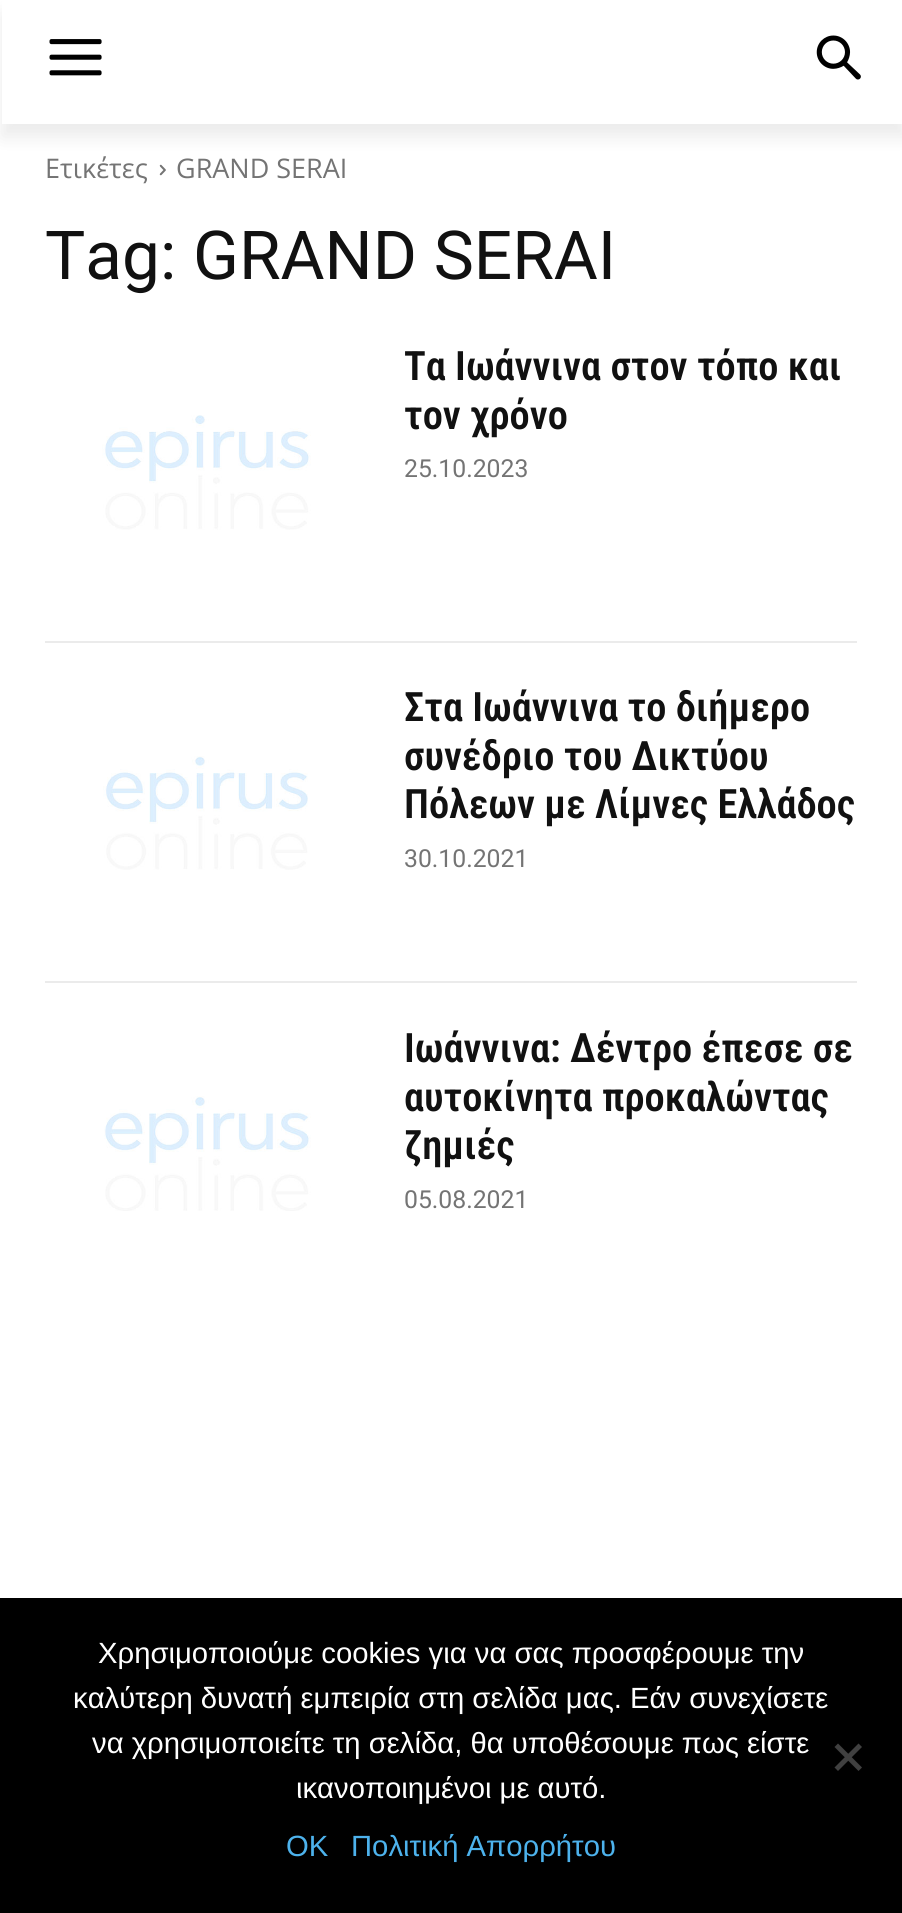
#include <cairo.h>
#include <math.h>
#include <stddef.h>


static void round_rect(cairo_t *cr, double x, double y, double w, double h, double r) {
    cairo_new_sub_path(cr);
    cairo_arc(cr, x + w - r, y + h - r, r, 0, M_PI / 2);
    cairo_arc(cr, x + r, y + h - r, r, M_PI / 2, M_PI);
    cairo_arc(cr, x + r, y + r, r, M_PI, 1.5 * M_PI);
    cairo_arc(cr, x + w - r, y + r, r, 1.5 * M_PI, 2 * M_PI);
    cairo_close_path(cr);
}

static void shadow(cairo_t *cr, double x, double y, double w, double h, double r, double blur, double alpha) {
    cairo_push_group_with_content(cr, CAIRO_CONTENT_ALPHA);
    cairo_set_operator(cr, CAIRO_OPERATOR_SOURCE);
    for (int i = 15; i >= -15 && fmin(w, h) + blur * i / 3 > 0; i -= 2) {
        double e = blur * i / 6;
        cairo_set_source_rgba(cr, 0, 0, 0, alpha * erfc((i - 1) / 8.5) / 2);
        round_rect(cr, x - e, y - e, w + 2 * e, h + 2 * e, fmax(0, fmin(r + e + blur * .6, fmin(w, h) / 2 + e)));
        cairo_fill(cr);
    }
    cairo_pattern_t *soft = cairo_pop_group(cr);
    cairo_mask(cr, soft);
    cairo_pattern_destroy(soft);
}

static void picture(cairo_t *cr, const char *path, double x, double y, double w, double h) {
    cairo_surface_t *image = cairo_image_surface_create_from_png(path);
    cairo_save(cr);
    cairo_set_source_surface(cr, image, x, y);
    cairo_rectangle(cr, x, y, w, h);
    cairo_fill(cr);
    cairo_restore(cr);
    cairo_surface_destroy(image);
}

int main(void) {
    cairo_surface_t *surface = cairo_image_surface_create(CAIRO_FORMAT_RGB24, 902, 1913);
    cairo_t *cr = cairo_create(surface);
    cairo_font_options_t *options = cairo_font_options_create();
    cairo_font_options_set_hint_metrics(options, CAIRO_HINT_METRICS_OFF);
    cairo_font_options_set_hint_style(options, CAIRO_HINT_STYLE_NONE);
    cairo_set_font_options(cr, options);
    cairo_set_miter_limit(cr, 4);
    cairo_set_source_rgb(cr, 1, 1, 1);
    cairo_paint(cr);
    picture(cr, "img1.png", 49, 39, 53, 37);
    picture(cr, "img2.png", 816, 35, 45, 45);
    picture(cr, "img3.png", 159, 164, 7, 12);
    cairo_save(cr);
    cairo_set_fill_rule(cr, CAIRO_FILL_RULE_EVEN_ODD);
    cairo_new_path(cr);
    cairo_move_to(cr, 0, 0);
    cairo_line_to(cr, 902, 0);
    cairo_line_to(cr, 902, 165);
    cairo_line_to(cr, 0, 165);
    cairo_close_path(cr);
    cairo_move_to(cr, 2, 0);
    cairo_line_to(cr, 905, 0);
    cairo_line_to(cr, 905, 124);
    cairo_line_to(cr, 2, 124);
    cairo_close_path(cr);
    cairo_clip(cr);
    cairo_set_source_rgb(cr, 0, 0, 0);
    shadow(cr, 2, 14, 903, 123, 0, 9, 0.08);
    cairo_restore(cr);
    cairo_select_font_face(cr, "Open Sans", CAIRO_FONT_SLANT_NORMAL, CAIRO_FONT_WEIGHT_NORMAL);
    cairo_set_font_size(cr, 27);
    cairo_set_source_rgb(cr, 0.455, 0.455, 0.455);
    cairo_move_to(cr, 45, 178);
    cairo_show_text(cr, "Ετικέτες");
    cairo_move_to(cr, 176, 178);
    cairo_show_text(cr, "GRAND SERAI");
    cairo_select_font_face(cr, "Roboto", CAIRO_FONT_SLANT_NORMAL, CAIRO_FONT_WEIGHT_NORMAL);
    cairo_set_font_size(cr, 67.5);
    cairo_set_source_rgb(cr, 0.067, 0.067, 0.067);
    cairo_move_to(cr, 45, 279);
    cairo_show_text(cr, "Tag: GRAND SERAI");
    picture(cr, "img4.png", 102, 415, 209, 115);
    cairo_select_font_face(cr, "Roboto Condensed SemiBold", CAIRO_FONT_SLANT_NORMAL, CAIRO_FONT_WEIGHT_NORMAL);
    cairo_set_font_size(cr, 40.5);
    cairo_move_to(cr, 404, 380);
    cairo_show_text(cr, "Τα Ιωάννινα στον τόπο και");
    cairo_move_to(cr, 404, 429);
    cairo_show_text(cr, "τον χρόνο");
    cairo_select_font_face(cr, "Roboto", CAIRO_FONT_SLANT_NORMAL, CAIRO_FONT_WEIGHT_NORMAL);
    cairo_set_font_size(cr, 24.75);
    cairo_set_source_rgb(cr, 0.455, 0.455, 0.455);
    cairo_move_to(cr, 404, 477);
    cairo_show_text(cr, "25.10.2023");
    cairo_set_source_rgb(cr, 0.918, 0.918, 0.918);
    cairo_rectangle(cr, 45, 641, 812, 2);
    cairo_fill(cr);
    picture(cr, "img5.png", 103, 756, 205, 114);
    cairo_select_font_face(cr, "Roboto Condensed SemiBold", CAIRO_FONT_SLANT_NORMAL, CAIRO_FONT_WEIGHT_NORMAL);
    cairo_set_font_size(cr, 40.5);
    cairo_set_source_rgb(cr, 0.067, 0.067, 0.067);
    cairo_move_to(cr, 404, 721);
    cairo_show_text(cr, "Στα Ιωάννινα το διήμερο");
    cairo_move_to(cr, 404, 770);
    cairo_show_text(cr, "συνέδριο του Δικτύου");
    cairo_move_to(cr, 404, 818);
    cairo_show_text(cr, "Πόλεων με Λίμνες Ελλάδος");
    cairo_select_font_face(cr, "Roboto", CAIRO_FONT_SLANT_NORMAL, CAIRO_FONT_WEIGHT_NORMAL);
    cairo_set_font_size(cr, 24.75);
    cairo_set_source_rgb(cr, 0.455, 0.455, 0.455);
    cairo_move_to(cr, 404, 867);
    cairo_show_text(cr, "30.10.2021");
    cairo_set_source_rgb(cr, 0.918, 0.918, 0.918);
    cairo_rectangle(cr, 45, 981, 812, 2);
    cairo_fill(cr);
    picture(cr, "img6.png", 104, 1096, 207, 115);
    cairo_select_font_face(cr, "Roboto Condensed SemiBold", CAIRO_FONT_SLANT_NORMAL, CAIRO_FONT_WEIGHT_NORMAL);
    cairo_set_font_size(cr, 40.5);
    cairo_set_source_rgb(cr, 0.067, 0.067, 0.067);
    cairo_move_to(cr, 404, 1062);
    cairo_show_text(cr, "Ιωάννινα: Δέντρο έπεσε σε");
    cairo_move_to(cr, 404, 1111);
    cairo_show_text(cr, "αυτοκίνητα προκαλώντας");
    cairo_move_to(cr, 404, 1159);
    cairo_show_text(cr, "ζημιές");
    cairo_select_font_face(cr, "Roboto", CAIRO_FONT_SLANT_NORMAL, CAIRO_FONT_WEIGHT_NORMAL);
    cairo_set_font_size(cr, 24.75);
    cairo_set_source_rgb(cr, 0.455, 0.455, 0.455);
    cairo_move_to(cr, 404, 1208);
    cairo_show_text(cr, "05.08.2021");
    cairo_set_source_rgb(cr, 0, 0, 0);
    cairo_rectangle(cr, 0, 1598, 902, 315);
    cairo_fill(cr);
    cairo_select_font_face(cr, "Liberation Sans", CAIRO_FONT_SLANT_NORMAL, CAIRO_FONT_WEIGHT_NORMAL);
    cairo_set_font_size(cr, 29.25);
    cairo_set_source_rgb(cr, 1, 1, 1);
    cairo_move_to(cr, 98, 1663);
    cairo_show_text(cr, "Χρησιμοποιούμε cookies για να σας προσφέρουμε την");
    cairo_move_to(cr, 73, 1708);
    cairo_show_text(cr, "καλύτερη δυνατή εμπειρία στη σελίδα μας. Εάν συνεχίσετε");
    cairo_move_to(cr, 92, 1753);
    cairo_show_text(cr, "να χρησιμοποιείτε τη σελίδα, θα υποθέσουμε πως είστε");
    cairo_move_to(cr, 296, 1798);
    cairo_show_text(cr, "ικανοποιημένοι με αυτό.");
    cairo_set_source_rgb(cr, 0.251, 0.251, 0.251);
    cairo_new_path(cr);
    cairo_move_to(cr, 858.5, 1743.5);
    cairo_line_to(cr, 862, 1747);
    cairo_line_to(cr, 838, 1771);
    cairo_line_to(cr, 834.5, 1767.5);
    cairo_close_path(cr);
    cairo_fill(cr);
    cairo_new_path(cr);
    cairo_move_to(cr, 834.5, 1747);
    cairo_line_to(cr, 838, 1743.5);
    cairo_line_to(cr, 862, 1767.5);
    cairo_line_to(cr, 858.5, 1771);
    cairo_close_path(cr);
    cairo_fill(cr);
    cairo_set_source_rgb(cr, 0.302, 0.698, 0.925);
    cairo_move_to(cr, 286, 1856);
    cairo_show_text(cr, "OK");
    cairo_move_to(cr, 351, 1856);
    cairo_show_text(cr, "Πολιτική Απορρήτου");
    cairo_surface_write_to_png(surface, "page.png");
    cairo_font_options_destroy(options);
    cairo_destroy(cr);
    cairo_surface_destroy(surface);
    return 0;
}
